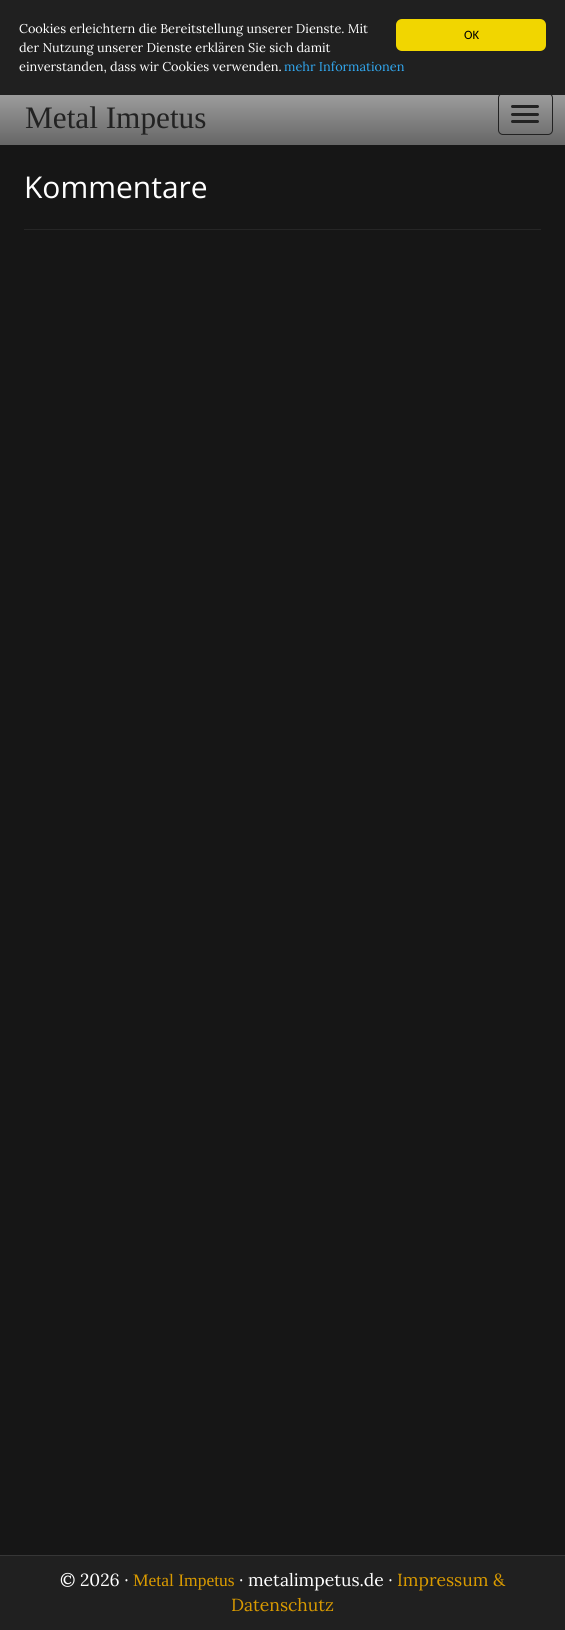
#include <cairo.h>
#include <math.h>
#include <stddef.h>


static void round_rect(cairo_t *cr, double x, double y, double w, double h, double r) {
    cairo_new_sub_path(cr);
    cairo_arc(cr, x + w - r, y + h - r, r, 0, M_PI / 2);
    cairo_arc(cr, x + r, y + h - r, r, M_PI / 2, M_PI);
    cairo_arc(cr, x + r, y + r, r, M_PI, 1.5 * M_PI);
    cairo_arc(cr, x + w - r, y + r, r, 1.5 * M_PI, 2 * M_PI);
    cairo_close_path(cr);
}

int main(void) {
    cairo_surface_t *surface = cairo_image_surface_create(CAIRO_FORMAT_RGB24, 565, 1630);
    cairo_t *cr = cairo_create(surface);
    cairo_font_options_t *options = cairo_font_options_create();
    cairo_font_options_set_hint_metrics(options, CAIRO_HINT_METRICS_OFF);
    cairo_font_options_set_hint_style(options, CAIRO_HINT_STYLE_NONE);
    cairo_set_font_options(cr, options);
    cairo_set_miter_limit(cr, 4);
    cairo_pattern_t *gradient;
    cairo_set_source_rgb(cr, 0.125, 0.125, 0.125);
    cairo_paint(cr);
    cairo_select_font_face(cr, "Lora", CAIRO_FONT_SLANT_NORMAL, CAIRO_FONT_WEIGHT_NORMAL);
    cairo_set_font_size(cr, 12.75);
    cairo_set_source_rgb(cr, 1, 1, 1);
    cairo_move_to(cr, 19, 33);
    cairo_show_text(cr, "Cookies erleichtern die Bereitstellung unserer Dienste. Mit");
    cairo_move_to(cr, 19, 52);
    cairo_show_text(cr, "der Nutzung unserer Dienste erklären Sie sich damit");
    cairo_move_to(cr, 19, 71);
    cairo_show_text(cr, "einverstanden, dass wir Cookies verwenden.");
    cairo_set_source_rgb(cr, 0.192, 0.659, 0.941);
    cairo_move_to(cr, 284, 71);
    cairo_show_text(cr, "mehr Informationen");
    cairo_set_source_rgb(cr, 0.945, 0.839, 0);
    round_rect(cr, 396, 19, 150, 32, 6);
    cairo_fill(cr);
    cairo_select_font_face(cr, "Carlito", CAIRO_FONT_SLANT_NORMAL, CAIRO_FONT_WEIGHT_NORMAL);
    cairo_set_source_rgb(cr, 0, 0, 0);
    cairo_move_to(cr, 464, 39);
    cairo_show_text(cr, "OK");
    gradient = cairo_pattern_create_linear(283, 82, 283, 145);
    cairo_pattern_add_color_stop_rgba(gradient, 0, 0.667, 0.667, 0.667, 1);
    cairo_pattern_add_color_stop_rgba(gradient, 1, 0.4, 0.4, 0.4, 1);
    cairo_set_source(cr, gradient);
    cairo_pattern_destroy(gradient);
    cairo_rectangle(cr, 0, 95, 565, 50);
    cairo_fill(cr);
    cairo_select_font_face(cr, "Liberation Serif", CAIRO_FONT_SLANT_NORMAL, CAIRO_FONT_WEIGHT_NORMAL);
    cairo_set_font_size(cr, 31.25);
    cairo_set_source_rgb(cr, 0.133, 0.133, 0.133);
    cairo_move_to(cr, 25, 128);
    cairo_show_text(cr, "Metal Impetus");
    round_rect(cr, 498.5, 93.5, 54, 41, 4.5);
    cairo_set_line_width(cr, 1);
    cairo_stroke(cr);
    round_rect(cr, 511, 105, 28, 3, 1.5);
    cairo_fill(cr);
    round_rect(cr, 511, 113, 28, 3, 1.5);
    cairo_fill(cr);
    round_rect(cr, 511, 120, 28, 3, 1.5);
    cairo_fill(cr);
    cairo_set_source_rgb(cr, 0.212, 0.212, 0.212);
    cairo_rectangle(cr, 0, 1555, 565, 1);
    cairo_fill(cr);
    cairo_set_source_rgb(cr, 0.086, 0.086, 0.086);
    cairo_rectangle(cr, 0, 145, 565, 1410);
    cairo_fill(cr);
    cairo_set_source_rgb(cr, 0.149, 0.149, 0.149);
    cairo_rectangle(cr, 24, 229, 517, 1);
    cairo_fill(cr);
    cairo_select_font_face(cr, "Open Sans", CAIRO_FONT_SLANT_NORMAL, CAIRO_FONT_WEIGHT_NORMAL);
    cairo_set_font_size(cr, 30);
    cairo_set_source_rgb(cr, 1, 1, 1);
    cairo_move_to(cr, 24, 198);
    cairo_show_text(cr, "Kommentare");
    cairo_select_font_face(cr, "Lora", CAIRO_FONT_SLANT_NORMAL, CAIRO_FONT_WEIGHT_NORMAL);
    cairo_set_font_size(cr, 17.5);
    cairo_move_to(cr, 60, 1586);
    cairo_show_text(cr, "© 2026 ·");
    cairo_select_font_face(cr, "Liberation Serif", CAIRO_FONT_SLANT_NORMAL, CAIRO_FONT_WEIGHT_NORMAL);
    cairo_set_source_rgb(cr, 0.851, 0.604, 0);
    cairo_move_to(cr, 133, 1586);
    cairo_show_text(cr, "Metal Impetus");
    cairo_select_font_face(cr, "Lora", CAIRO_FONT_SLANT_NORMAL, CAIRO_FONT_WEIGHT_NORMAL);
    cairo_set_source_rgb(cr, 1, 1, 1);
    cairo_move_to(cr, 239, 1586);
    cairo_show_text(cr, "· metalimpetus.de ·");
    cairo_set_source_rgb(cr, 0.851, 0.604, 0);
    cairo_move_to(cr, 397, 1586);
    cairo_show_text(cr, "Impressum &");
    cairo_move_to(cr, 231, 1611);
    cairo_show_text(cr, "Datenschutz");
    cairo_surface_write_to_png(surface, "page.png");
    cairo_font_options_destroy(options);
    cairo_destroy(cr);
    cairo_surface_destroy(surface);
    return 0;
}
